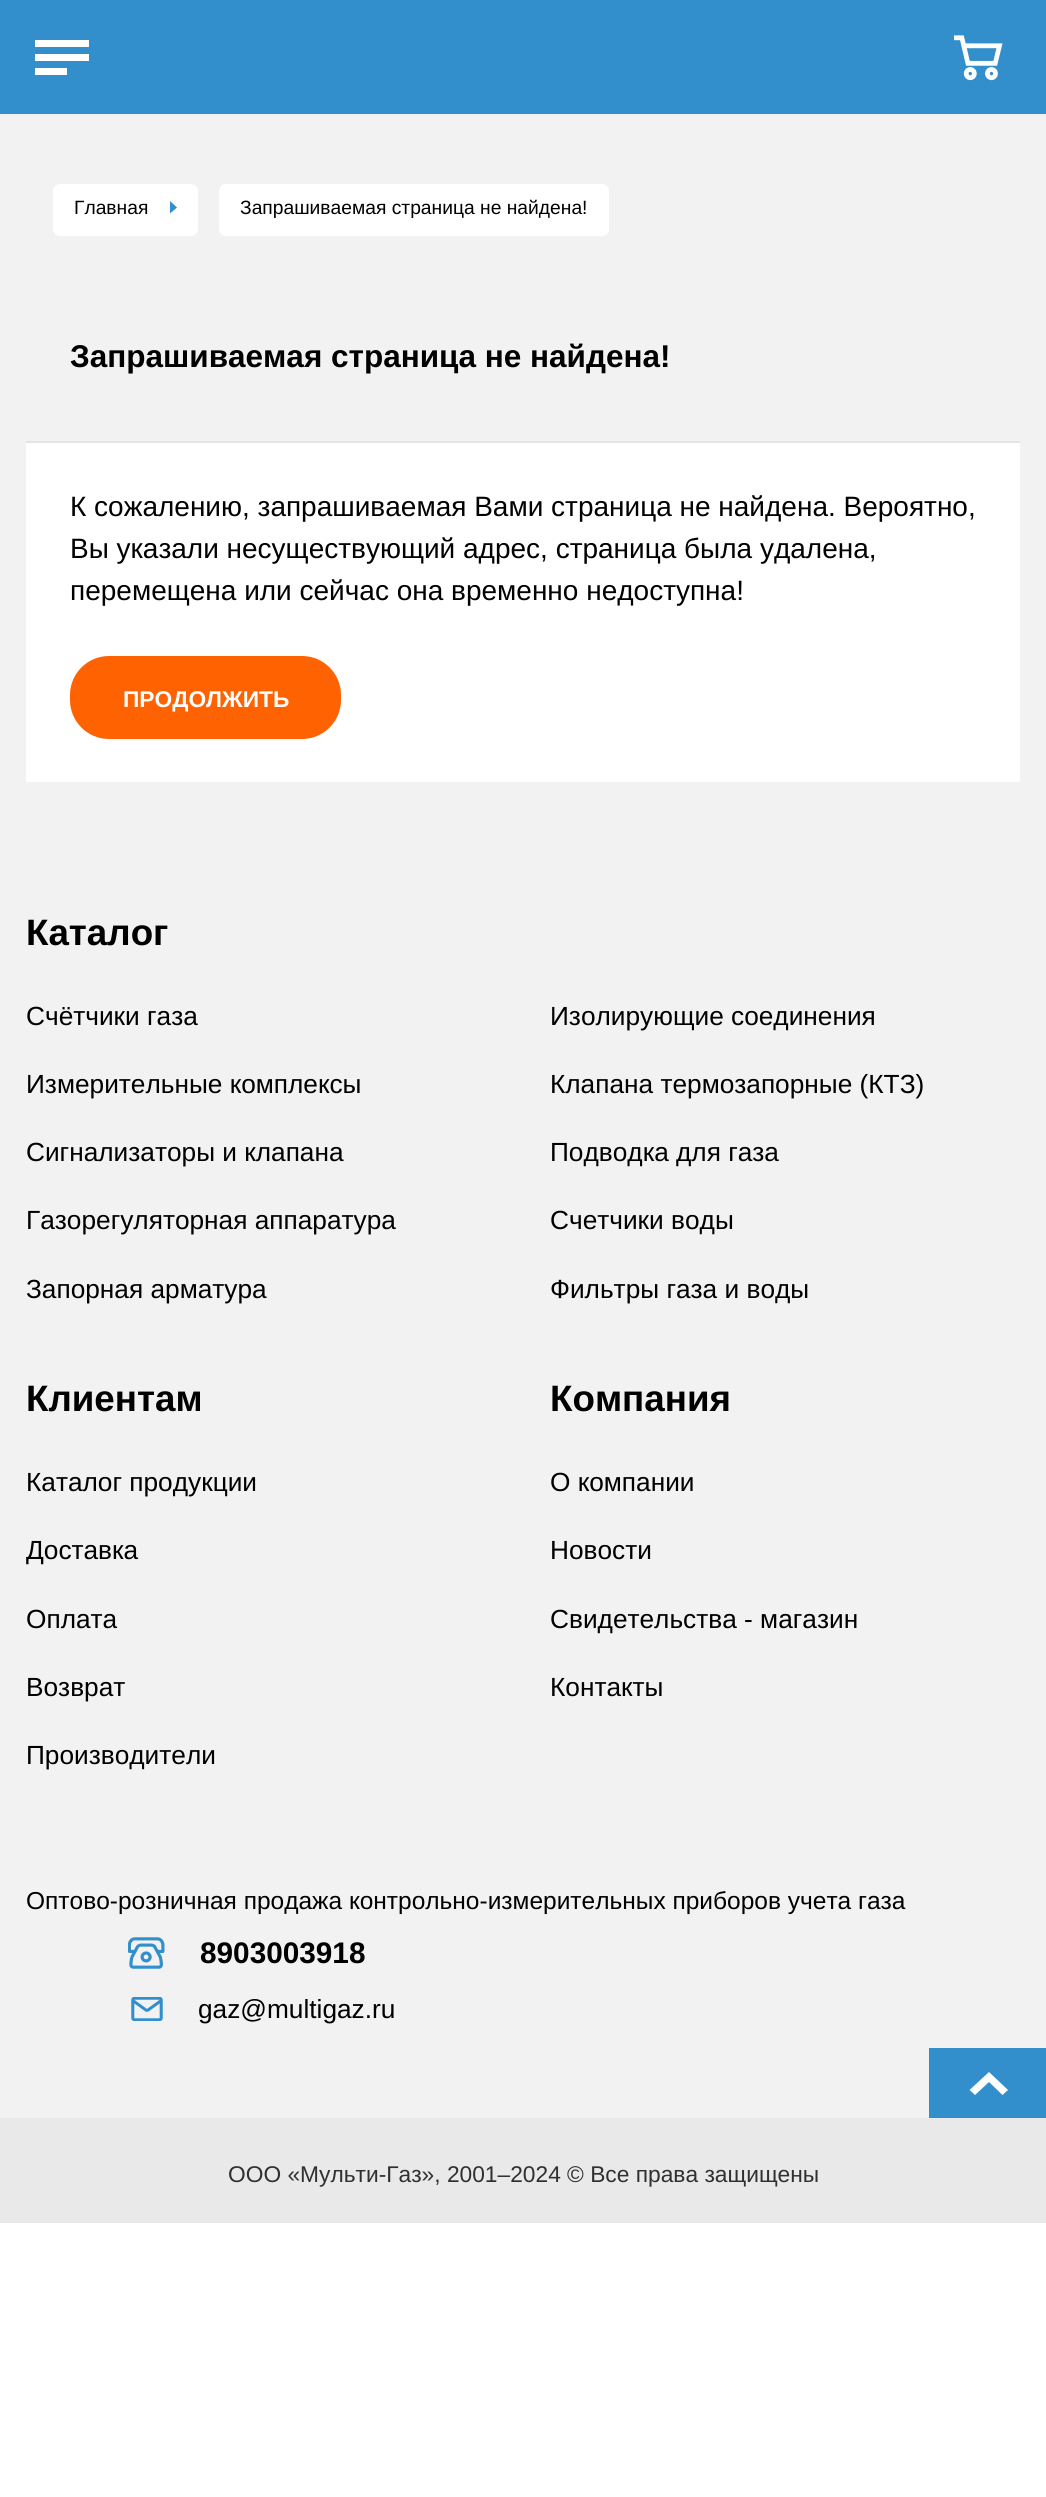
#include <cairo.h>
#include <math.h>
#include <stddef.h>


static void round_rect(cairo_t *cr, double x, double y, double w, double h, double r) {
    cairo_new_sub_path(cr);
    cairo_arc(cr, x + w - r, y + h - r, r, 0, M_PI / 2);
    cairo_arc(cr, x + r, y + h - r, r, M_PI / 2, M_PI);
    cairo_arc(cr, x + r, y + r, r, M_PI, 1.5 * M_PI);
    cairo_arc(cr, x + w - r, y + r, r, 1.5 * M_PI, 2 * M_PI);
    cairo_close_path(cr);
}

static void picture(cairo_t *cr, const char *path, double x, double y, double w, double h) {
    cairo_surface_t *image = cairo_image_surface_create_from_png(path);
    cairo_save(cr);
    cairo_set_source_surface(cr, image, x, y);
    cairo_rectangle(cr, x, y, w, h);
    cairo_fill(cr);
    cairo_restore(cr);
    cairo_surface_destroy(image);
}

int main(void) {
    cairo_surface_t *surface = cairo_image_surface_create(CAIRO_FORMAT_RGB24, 1046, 2497);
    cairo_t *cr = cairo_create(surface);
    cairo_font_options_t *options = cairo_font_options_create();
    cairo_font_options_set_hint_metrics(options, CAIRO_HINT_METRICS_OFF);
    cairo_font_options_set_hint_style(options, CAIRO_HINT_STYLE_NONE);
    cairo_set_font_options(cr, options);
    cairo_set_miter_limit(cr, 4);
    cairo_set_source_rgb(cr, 1, 1, 1);
    cairo_paint(cr);
    cairo_set_source_rgb(cr, 0.949, 0.949, 0.949);
    cairo_rectangle(cr, 0, 114, 1046, 2004);
    cairo_fill(cr);
    cairo_set_source_rgb(cr, 0.196, 0.561, 0.8);
    cairo_rectangle(cr, 0, 0, 1046, 114);
    cairo_fill(cr);
    cairo_set_source_rgb(cr, 1, 1, 1);
    cairo_rectangle(cr, 35, 40, 54, 7);
    cairo_fill(cr);
    cairo_rectangle(cr, 35, 54, 54, 7);
    cairo_fill(cr);
    cairo_rectangle(cr, 35, 68, 32, 7);
    cairo_fill(cr);
    picture(cr, "img1.png", 954, 35, 49, 46);
    round_rect(cr, 53, 184, 145, 52, 7);
    cairo_fill(cr);
    cairo_select_font_face(cr, "Liberation Sans", CAIRO_FONT_SLANT_NORMAL, CAIRO_FONT_WEIGHT_NORMAL);
    cairo_set_font_size(cr, 19.25);
    cairo_set_source_rgb(cr, 0, 0, 0);
    cairo_move_to(cr, 74, 214);
    cairo_show_text(cr, "Главная");
    cairo_set_source_rgb(cr, 0.196, 0.561, 0.8);
    cairo_set_fill_rule(cr, CAIRO_FILL_RULE_EVEN_ODD);
    cairo_new_path(cr);
    cairo_move_to(cr, 170, 201);
    cairo_line_to(cr, 177, 207.5);
    cairo_line_to(cr, 170, 213.5);
    cairo_close_path(cr);
    cairo_fill(cr);
    cairo_set_source_rgb(cr, 1, 1, 1);
    round_rect(cr, 219, 184, 390, 52, 7);
    cairo_fill(cr);
    cairo_set_source_rgb(cr, 0, 0, 0);
    cairo_move_to(cr, 240, 214);
    cairo_show_text(cr, "Запрашиваемая страница не найдена!");
    cairo_set_source_rgb(cr, 1, 1, 1);
    cairo_rectangle(cr, 26, 443, 994, 339);
    cairo_fill(cr);
    cairo_set_source_rgb(cr, 0.894, 0.894, 0.894);
    cairo_rectangle(cr, 26, 441, 994, 2);
    cairo_fill(cr);
    cairo_select_font_face(cr, "Liberation Sans", CAIRO_FONT_SLANT_NORMAL, CAIRO_FONT_WEIGHT_BOLD);
    cairo_set_font_size(cr, 31.5);
    cairo_set_source_rgb(cr, 0, 0, 0);
    cairo_move_to(cr, 70, 367);
    cairo_show_text(cr, "Запрашиваемая страница не найдена!");
    cairo_select_font_face(cr, "Liberation Sans", CAIRO_FONT_SLANT_NORMAL, CAIRO_FONT_WEIGHT_NORMAL);
    cairo_set_font_size(cr, 28);
    cairo_move_to(cr, 70, 516);
    cairo_show_text(cr, "К сожалению, запрашиваемая Вами страница не найдена. Вероятно,");
    cairo_move_to(cr, 70, 558);
    cairo_show_text(cr, "Вы указали несуществующий адрес, страница была удалена,");
    cairo_move_to(cr, 70, 600);
    cairo_show_text(cr, "перемещена или сейчас она временно недоступна!");
    cairo_set_source_rgb(cr, 1, 0.384, 0);
    round_rect(cr, 70, 656, 271, 83, 39);
    cairo_fill(cr);
    cairo_select_font_face(cr, "Liberation Sans", CAIRO_FONT_SLANT_NORMAL, CAIRO_FONT_WEIGHT_BOLD);
    cairo_set_font_size(cr, 22.75);
    cairo_set_source_rgb(cr, 1, 1, 1);
    cairo_move_to(cr, 123, 707);
    cairo_show_text(cr, "ПРОДОЛЖИТЬ");
    cairo_set_font_size(cr, 36.75);
    cairo_set_source_rgb(cr, 0, 0, 0);
    cairo_move_to(cr, 26, 945);
    cairo_show_text(cr, "Каталог");
    cairo_select_font_face(cr, "Liberation Sans", CAIRO_FONT_SLANT_NORMAL, CAIRO_FONT_WEIGHT_NORMAL);
    cairo_set_font_size(cr, 26.25);
    cairo_move_to(cr, 26, 1025);
    cairo_show_text(cr, "Счётчики газа");
    cairo_move_to(cr, 26, 1093);
    cairo_show_text(cr, "Измерительные комплексы");
    cairo_move_to(cr, 26, 1161);
    cairo_show_text(cr, "Сигнализаторы и клапана");
    cairo_move_to(cr, 26, 1229);
    cairo_show_text(cr, "Газорегуляторная аппаратура");
    cairo_move_to(cr, 26, 1298);
    cairo_show_text(cr, "Запорная арматура");
    cairo_move_to(cr, 550, 1025);
    cairo_show_text(cr, "Изолирующие соединения");
    cairo_move_to(cr, 550, 1093);
    cairo_show_text(cr, "Клапана термозапорные (КТЗ)");
    cairo_move_to(cr, 550, 1161);
    cairo_show_text(cr, "Подводка для газа");
    cairo_move_to(cr, 550, 1229);
    cairo_show_text(cr, "Счетчики воды");
    cairo_move_to(cr, 550, 1298);
    cairo_show_text(cr, "Фильтры газа и воды");
    cairo_select_font_face(cr, "Liberation Sans", CAIRO_FONT_SLANT_NORMAL, CAIRO_FONT_WEIGHT_BOLD);
    cairo_set_font_size(cr, 36.75);
    cairo_move_to(cr, 26, 1411);
    cairo_show_text(cr, "Клиентам");
    cairo_select_font_face(cr, "Liberation Sans", CAIRO_FONT_SLANT_NORMAL, CAIRO_FONT_WEIGHT_NORMAL);
    cairo_set_font_size(cr, 26.25);
    cairo_move_to(cr, 26, 1491);
    cairo_show_text(cr, "Каталог продукции");
    cairo_move_to(cr, 26, 1559);
    cairo_show_text(cr, "Доставка");
    cairo_move_to(cr, 26, 1628);
    cairo_show_text(cr, "Оплата");
    cairo_move_to(cr, 26, 1696);
    cairo_show_text(cr, "Возврат");
    cairo_move_to(cr, 26, 1764);
    cairo_show_text(cr, "Производители");
    cairo_select_font_face(cr, "Liberation Sans", CAIRO_FONT_SLANT_NORMAL, CAIRO_FONT_WEIGHT_BOLD);
    cairo_set_font_size(cr, 36.75);
    cairo_move_to(cr, 550, 1411);
    cairo_show_text(cr, "Компания");
    cairo_select_font_face(cr, "Liberation Sans", CAIRO_FONT_SLANT_NORMAL, CAIRO_FONT_WEIGHT_NORMAL);
    cairo_set_font_size(cr, 26.25);
    cairo_move_to(cr, 550, 1491);
    cairo_show_text(cr, "О компании");
    cairo_move_to(cr, 550, 1559);
    cairo_show_text(cr, "Новости");
    cairo_move_to(cr, 550, 1628);
    cairo_show_text(cr, "Свидетельства - магазин");
    cairo_move_to(cr, 550, 1696);
    cairo_show_text(cr, "Контакты");
    cairo_set_font_size(cr, 24.5);
    cairo_move_to(cr, 26, 1909);
    cairo_show_text(cr, "Оптово-розничная продажа контрольно-измерительных приборов учета газа");
    picture(cr, "img2.png", 128, 1937, 37, 32);
    cairo_select_font_face(cr, "Liberation Sans", CAIRO_FONT_SLANT_NORMAL, CAIRO_FONT_WEIGHT_BOLD);
    cairo_set_font_size(cr, 29.75);
    cairo_move_to(cr, 200, 1963);
    cairo_show_text(cr, "8903003918");
    picture(cr, "img3.png", 131, 1997, 32, 24);
    cairo_select_font_face(cr, "Liberation Sans", CAIRO_FONT_SLANT_NORMAL, CAIRO_FONT_WEIGHT_NORMAL);
    cairo_set_font_size(cr, 26.25);
    cairo_move_to(cr, 198, 2018);
    cairo_show_text(cr, "gaz@multigaz.ru");
    cairo_set_source_rgb(cr, 0.196, 0.561, 0.8);
    cairo_rectangle(cr, 929, 2048, 117, 70);
    cairo_fill(cr);
    cairo_set_source_rgb(cr, 1, 1, 1);
    cairo_set_fill_rule(cr, CAIRO_FILL_RULE_WINDING);
    cairo_new_path(cr);
    cairo_move_to(cr, 969.5, 2090);
    cairo_line_to(cr, 975, 2095);
    cairo_line_to(cr, 989, 2082);
    cairo_line_to(cr, 1002.5, 2095);
    cairo_line_to(cr, 1008, 2090);
    cairo_line_to(cr, 989, 2072);
    cairo_close_path(cr);
    cairo_fill(cr);
    cairo_set_source_rgb(cr, 0.914, 0.914, 0.914);
    cairo_rectangle(cr, 0, 2118, 1046, 105);
    cairo_fill(cr);
    cairo_set_font_size(cr, 22.75);
    cairo_set_source_rgb(cr, 0.188, 0.188, 0.188);
    cairo_move_to(cr, 228, 2182);
    cairo_show_text(cr, "ООО «Мульти-Газ», 2001–2024 © Все права защищены");
    cairo_surface_write_to_png(surface, "page.png");
    cairo_font_options_destroy(options);
    cairo_destroy(cr);
    cairo_surface_destroy(surface);
    return 0;
}
